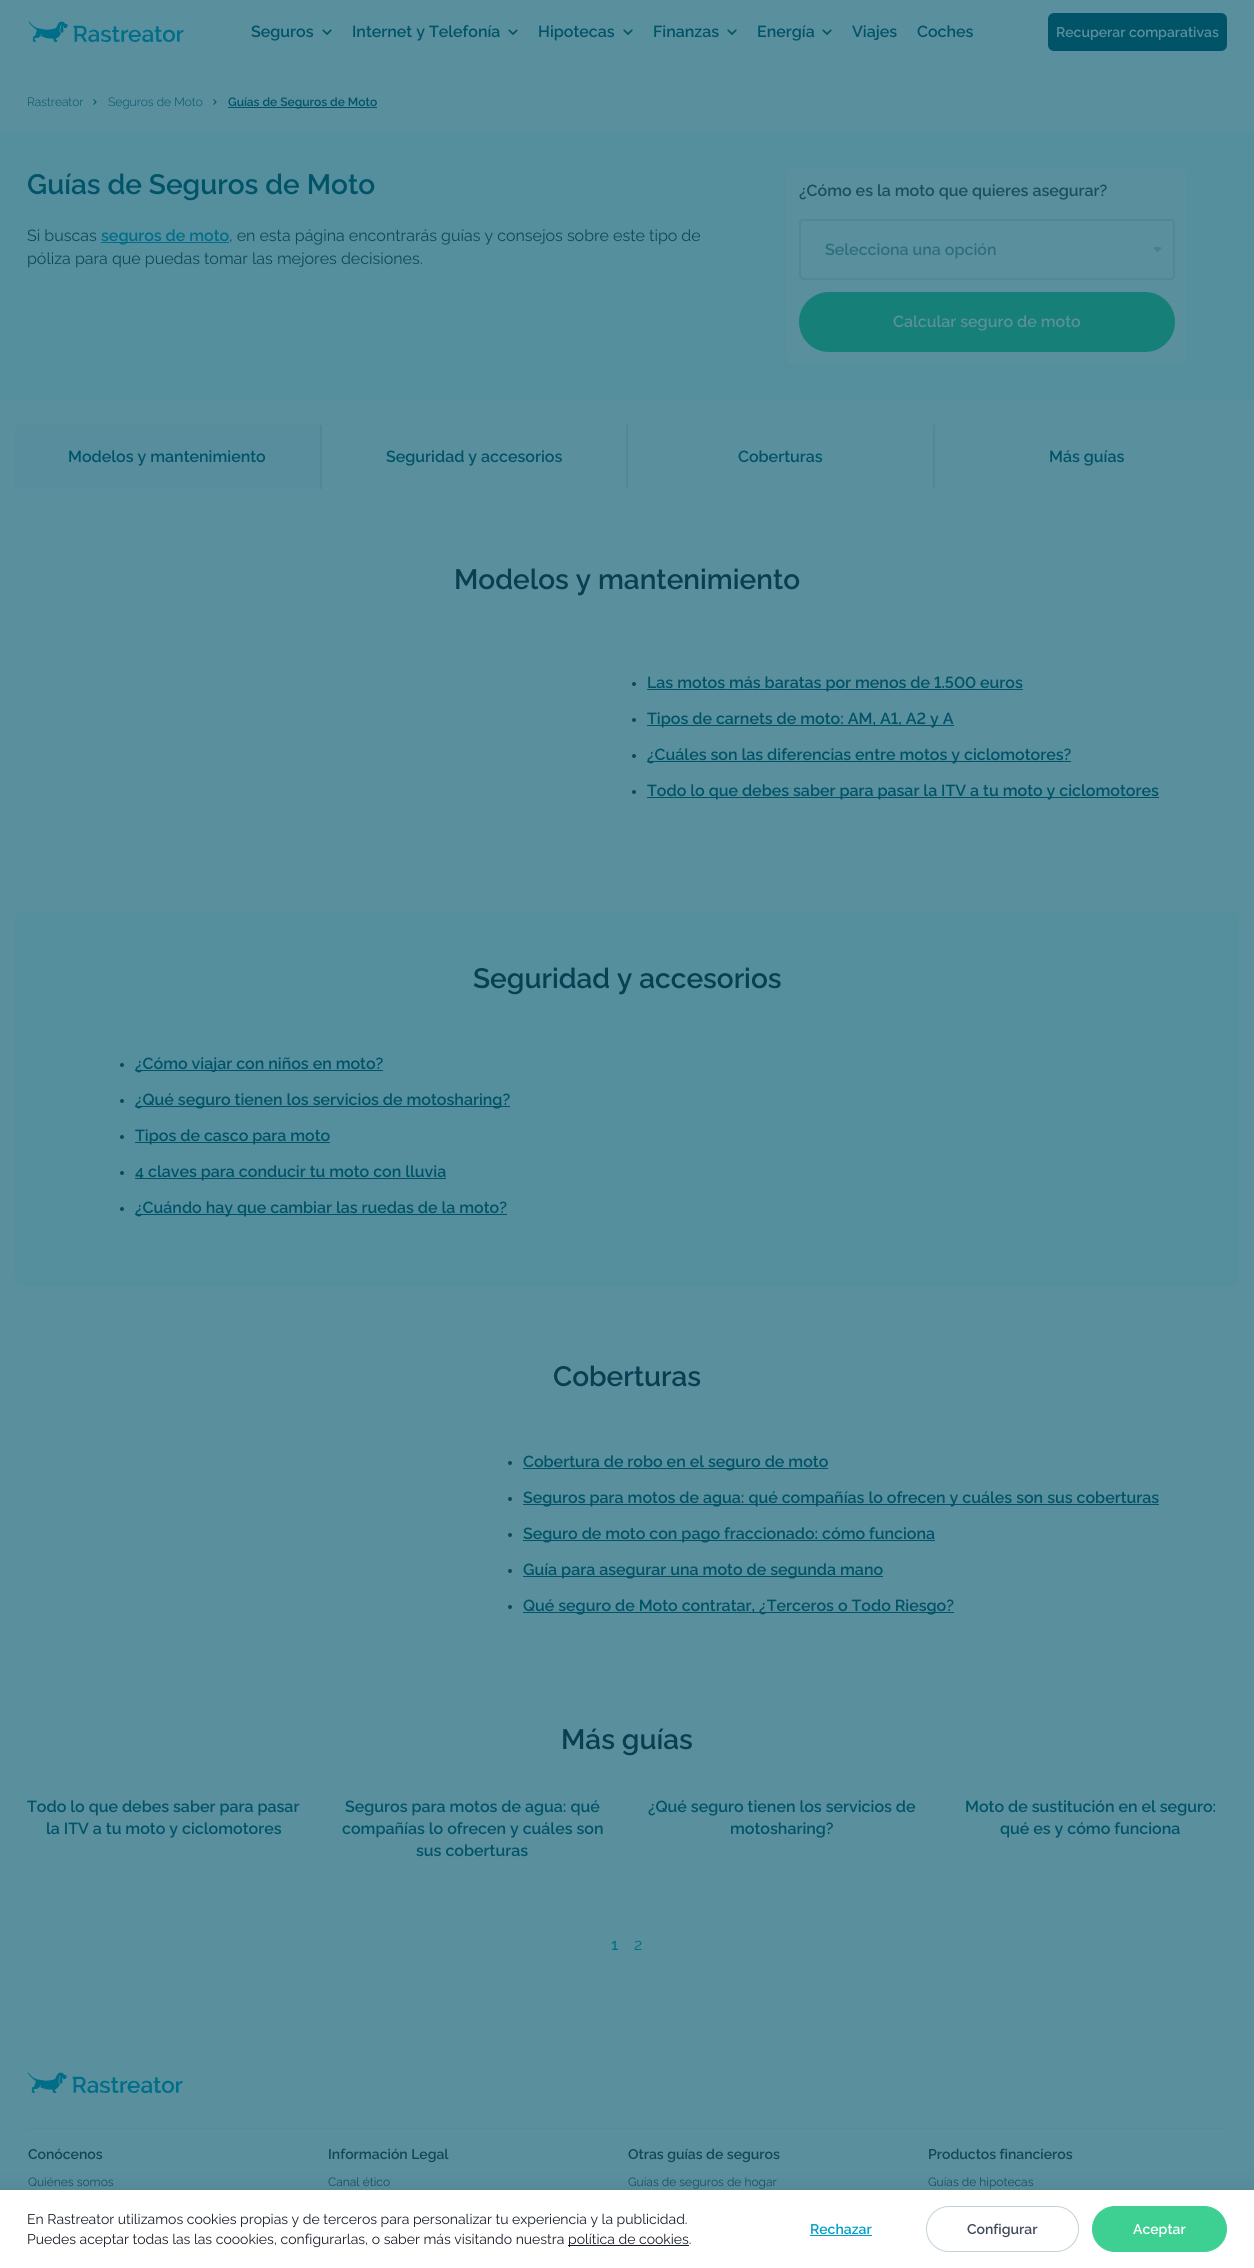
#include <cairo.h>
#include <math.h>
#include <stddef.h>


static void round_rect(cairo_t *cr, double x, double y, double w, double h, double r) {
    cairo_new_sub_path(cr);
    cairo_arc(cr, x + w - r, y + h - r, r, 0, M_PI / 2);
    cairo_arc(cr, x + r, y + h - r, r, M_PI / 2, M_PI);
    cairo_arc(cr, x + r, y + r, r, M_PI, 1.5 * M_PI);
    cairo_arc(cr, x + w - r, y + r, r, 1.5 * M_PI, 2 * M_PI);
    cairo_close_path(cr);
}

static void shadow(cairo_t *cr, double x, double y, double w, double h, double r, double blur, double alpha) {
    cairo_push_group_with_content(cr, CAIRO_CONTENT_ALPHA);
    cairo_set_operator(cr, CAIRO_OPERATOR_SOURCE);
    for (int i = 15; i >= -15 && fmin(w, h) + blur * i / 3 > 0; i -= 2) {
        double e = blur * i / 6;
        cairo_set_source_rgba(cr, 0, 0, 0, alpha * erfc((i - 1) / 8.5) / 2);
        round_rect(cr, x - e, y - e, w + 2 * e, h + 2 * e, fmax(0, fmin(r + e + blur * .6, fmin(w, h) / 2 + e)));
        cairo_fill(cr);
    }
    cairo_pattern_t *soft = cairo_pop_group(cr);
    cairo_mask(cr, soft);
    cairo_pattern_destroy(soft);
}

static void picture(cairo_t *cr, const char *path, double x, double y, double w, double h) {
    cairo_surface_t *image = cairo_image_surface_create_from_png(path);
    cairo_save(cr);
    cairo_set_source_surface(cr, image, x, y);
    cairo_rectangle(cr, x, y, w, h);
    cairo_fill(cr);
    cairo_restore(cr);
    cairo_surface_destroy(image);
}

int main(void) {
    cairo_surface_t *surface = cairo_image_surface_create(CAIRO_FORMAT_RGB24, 1254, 2268);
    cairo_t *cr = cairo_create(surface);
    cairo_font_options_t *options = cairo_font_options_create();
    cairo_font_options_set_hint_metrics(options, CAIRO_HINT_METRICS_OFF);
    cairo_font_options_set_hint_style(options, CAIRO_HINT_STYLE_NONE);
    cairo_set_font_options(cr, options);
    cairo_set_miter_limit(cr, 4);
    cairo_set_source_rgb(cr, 0.353, 0.561, 0.616);
    cairo_paint(cr);
    picture(cr, "img1.png", 29, 21, 155, 21);
    cairo_select_font_face(cr, "Raleway SemiBold", CAIRO_FONT_SLANT_NORMAL, CAIRO_FONT_WEIGHT_NORMAL);
    cairo_set_font_size(cr, 16);
    cairo_set_source_rgb(cr, 0.004, 0.325, 0.408);
    cairo_move_to(cr, 251, 37);
    cairo_show_text(cr, "Seguros");
    picture(cr, "img2.png", 322, 29, 10, 7);
    cairo_move_to(cr, 352, 37);
    cairo_show_text(cr, "Internet y Telefonía");
    picture(cr, "img2.png", 508, 29, 10, 7);
    cairo_move_to(cr, 538, 37);
    cairo_show_text(cr, "Hipotecas");
    picture(cr, "img2.png", 623, 29, 10, 7);
    cairo_move_to(cr, 653, 37);
    cairo_show_text(cr, "Finanzas");
    picture(cr, "img2.png", 727, 29, 10, 7);
    cairo_move_to(cr, 757, 37);
    cairo_show_text(cr, "Energía");
    picture(cr, "img2.png", 822, 29, 10, 7);
    cairo_move_to(cr, 852, 37);
    cairo_show_text(cr, "Viajes");
    cairo_move_to(cr, 917, 37);
    cairo_show_text(cr, "Coches");
    round_rect(cr, 1048, 13, 179, 38, 6);
    cairo_fill(cr);
    cairo_set_font_size(cr, 14);
    cairo_set_source_rgb(cr, 0.353, 0.561, 0.616);
    cairo_move_to(cr, 1056, 37);
    cairo_show_text(cr, "Recuperar comparativas");
    cairo_select_font_face(cr, "Raleway Light", CAIRO_FONT_SLANT_NORMAL, CAIRO_FONT_WEIGHT_NORMAL);
    cairo_set_font_size(cr, 12);
    cairo_set_source_rgb(cr, 0.004, 0.325, 0.408);
    cairo_move_to(cr, 27, 106);
    cairo_show_text(cr, "Rastreator");
    picture(cr, "img3.png", 93, 99, 4, 6);
    cairo_move_to(cr, 108, 106);
    cairo_show_text(cr, "Seguros de Moto");
    picture(cr, "img3.png", 213, 99, 4, 6);
    cairo_rectangle(cr, 228, 107, 149, 1);
    cairo_fill(cr);
    cairo_select_font_face(cr, "Raleway SemiBold", CAIRO_FONT_SLANT_NORMAL, CAIRO_FONT_WEIGHT_NORMAL);
    cairo_move_to(cr, 228, 106);
    cairo_show_text(cr, "Guías de Seguros de Moto");
    cairo_set_source_rgb(cr, 0.333, 0.557, 0.616);
    cairo_rectangle(cr, 0, 132, 1254, 269);
    cairo_fill(cr);
    cairo_set_font_size(cr, 28);
    cairo_set_source_rgb(cr, 0.004, 0.325, 0.408);
    cairo_move_to(cr, 27, 194);
    cairo_show_text(cr, "Guías de Seguros de Moto");
    cairo_set_source_rgb(cr, 0.353, 0.561, 0.616);
    round_rect(cr, 787, 168, 400, 196, 6);
    cairo_fill(cr);
    cairo_set_font_size(cr, 16);
    cairo_set_source_rgb(cr, 0.094, 0.314, 0.388);
    cairo_move_to(cr, 799, 196);
    cairo_show_text(cr, "¿Cómo es la moto que quieres asegurar?");
    round_rect(cr, 800, 220, 374, 59, 3);
    cairo_set_source_rgb(cr, 0.314, 0.533, 0.596);
    cairo_stroke(cr);
    picture(cr, "img4.png", 1153, 247, 9, 5);
    cairo_set_source_rgb(cr, 0.184, 0.427, 0.494);
    cairo_move_to(cr, 825, 255);
    cairo_show_text(cr, "Selecciona una opción");
    cairo_set_source_rgb(cr, 0.086, 0.498, 0.467);
    round_rect(cr, 799, 292, 376, 60, 30);
    cairo_fill(cr);
    cairo_set_source_rgb(cr, 0.353, 0.561, 0.616);
    cairo_move_to(cr, 893, 327);
    cairo_show_text(cr, "Calcular seguro de moto");
    cairo_select_font_face(cr, "Raleway", CAIRO_FONT_SLANT_NORMAL, CAIRO_FONT_WEIGHT_NORMAL);
    cairo_set_source_rgb(cr, 0.071, 0.282, 0.333);
    cairo_move_to(cr, 27, 241);
    cairo_show_text(cr, "Si buscas");
    cairo_set_source_rgb(cr, 0.004, 0.431, 0.537);
    cairo_rectangle(cr, 101, 242, 128, 1);
    cairo_fill(cr);
    cairo_select_font_face(cr, "Raleway SemiBold", CAIRO_FONT_SLANT_NORMAL, CAIRO_FONT_WEIGHT_NORMAL);
    cairo_move_to(cr, 101, 241);
    cairo_show_text(cr, "seguros de moto");
    cairo_select_font_face(cr, "Raleway", CAIRO_FONT_SLANT_NORMAL, CAIRO_FONT_WEIGHT_NORMAL);
    cairo_set_source_rgb(cr, 0.071, 0.282, 0.333);
    cairo_move_to(cr, 229, 241);
    cairo_show_text(cr, ", en esta página encontrarás guías y consejos sobre este tipo de");
    cairo_move_to(cr, 27, 264);
    cairo_show_text(cr, "póliza para que puedas tomar las mejores decisiones.");
    cairo_set_source_rgb(cr, 0.341, 0.553, 0.616);
    cairo_rectangle(cr, 15, 425, 305, 64);
    cairo_fill(cr);
    cairo_set_source_rgb(cr, 0.314, 0.533, 0.596);
    cairo_rectangle(cr, 320, 425, 2, 64);
    cairo_fill(cr);
    cairo_select_font_face(cr, "Raleway SemiBold", CAIRO_FONT_SLANT_NORMAL, CAIRO_FONT_WEIGHT_NORMAL);
    cairo_set_source_rgb(cr, 0.004, 0.325, 0.408);
    cairo_move_to(cr, 68, 462);
    cairo_show_text(cr, "Modelos y mantenimiento");
    cairo_set_source_rgb(cr, 0.314, 0.533, 0.596);
    cairo_rectangle(cr, 626, 425, 2, 64);
    cairo_fill(cr);
    cairo_set_source_rgb(cr, 0.004, 0.325, 0.408);
    cairo_move_to(cr, 386, 462);
    cairo_show_text(cr, "Seguridad y accesorios");
    cairo_set_source_rgb(cr, 0.314, 0.533, 0.596);
    cairo_rectangle(cr, 933, 425, 2, 64);
    cairo_fill(cr);
    cairo_set_source_rgb(cr, 0.004, 0.325, 0.408);
    cairo_move_to(cr, 738, 462);
    cairo_show_text(cr, "Coberturas");
    cairo_move_to(cr, 1049, 462);
    cairo_show_text(cr, "Más guías");
    cairo_set_font_size(cr, 28);
    cairo_set_source_rgb(cr, 0.035, 0.251, 0.322);
    cairo_move_to(cr, 454, 589);
    cairo_show_text(cr, "Modelos y mantenimiento");
    cairo_set_source_rgb(cr, 0.071, 0.282, 0.333);
    cairo_new_path(cr);
    cairo_arc(cr, 634, 684, 2, 0, 2 * M_PI);
    cairo_fill(cr);
    cairo_set_source_rgb(cr, 0.004, 0.325, 0.408);
    cairo_rectangle(cr, 647, 689, 376, 1);
    cairo_fill(cr);
    cairo_select_font_face(cr, "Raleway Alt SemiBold", CAIRO_FONT_SLANT_NORMAL, CAIRO_FONT_WEIGHT_NORMAL);
    cairo_set_font_size(cr, 16);
    cairo_move_to(cr, 647, 688);
    cairo_show_text(cr, "Las motos más baratas por menos de 1.500 euros");
    cairo_set_source_rgb(cr, 0.071, 0.282, 0.333);
    cairo_new_path(cr);
    cairo_arc(cr, 634, 720, 2, 0, 2 * M_PI);
    cairo_fill(cr);
    cairo_set_source_rgb(cr, 0.004, 0.325, 0.408);
    cairo_rectangle(cr, 647, 725, 307, 1);
    cairo_fill(cr);
    cairo_move_to(cr, 647, 724);
    cairo_show_text(cr, "Tipos de carnets de moto: AM, A1, A2 y A");
    cairo_set_source_rgb(cr, 0.071, 0.282, 0.333);
    cairo_new_path(cr);
    cairo_arc(cr, 634, 756, 2, 0, 2 * M_PI);
    cairo_fill(cr);
    cairo_set_source_rgb(cr, 0.004, 0.325, 0.408);
    cairo_rectangle(cr, 647, 761, 424, 1);
    cairo_fill(cr);
    cairo_select_font_face(cr, "Raleway SemiBold", CAIRO_FONT_SLANT_NORMAL, CAIRO_FONT_WEIGHT_NORMAL);
    cairo_move_to(cr, 647, 760);
    cairo_show_text(cr, "¿Cuáles son las diferencias entre motos y ciclomotores?");
    cairo_set_source_rgb(cr, 0.071, 0.282, 0.333);
    cairo_new_path(cr);
    cairo_arc(cr, 634, 792, 2, 0, 2 * M_PI);
    cairo_fill(cr);
    cairo_set_source_rgb(cr, 0.004, 0.325, 0.408);
    cairo_rectangle(cr, 647, 797, 512, 1);
    cairo_fill(cr);
    cairo_move_to(cr, 647, 796);
    cairo_show_text(cr, "Todo lo que debes saber para pasar la ITV a tu moto y ciclomotores");
    cairo_set_source_rgb(cr, 0.333, 0.557, 0.616);
    round_rect(cr, 15, 911, 1224, 375, 8);
    cairo_fill(cr);
    cairo_set_font_size(cr, 28);
    cairo_set_source_rgb(cr, 0.035, 0.251, 0.322);
    cairo_move_to(cr, 473, 988);
    cairo_show_text(cr, "Seguridad y accesorios");
    cairo_set_source_rgb(cr, 0.071, 0.282, 0.333);
    cairo_new_path(cr);
    cairo_arc(cr, 122, 1065, 2, 0, 2 * M_PI);
    cairo_fill(cr);
    cairo_set_source_rgb(cr, 0.004, 0.325, 0.408);
    cairo_rectangle(cr, 135, 1070, 248, 1);
    cairo_fill(cr);
    cairo_set_font_size(cr, 16);
    cairo_move_to(cr, 135, 1069);
    cairo_show_text(cr, "¿Cómo viajar con niños en moto?");
    cairo_set_source_rgb(cr, 0.071, 0.282, 0.333);
    cairo_new_path(cr);
    cairo_arc(cr, 122, 1101, 2, 0, 2 * M_PI);
    cairo_fill(cr);
    cairo_set_source_rgb(cr, 0.004, 0.325, 0.408);
    cairo_rectangle(cr, 135, 1106, 375, 1);
    cairo_fill(cr);
    cairo_move_to(cr, 135, 1105);
    cairo_show_text(cr, "¿Qué seguro tienen los servicios de motosharing?");
    cairo_set_source_rgb(cr, 0.071, 0.282, 0.333);
    cairo_new_path(cr);
    cairo_arc(cr, 122, 1137, 2, 0, 2 * M_PI);
    cairo_fill(cr);
    cairo_set_source_rgb(cr, 0.004, 0.325, 0.408);
    cairo_rectangle(cr, 135, 1142, 195, 1);
    cairo_fill(cr);
    cairo_move_to(cr, 135, 1141);
    cairo_show_text(cr, "Tipos de casco para moto");
    cairo_set_source_rgb(cr, 0.071, 0.282, 0.333);
    cairo_new_path(cr);
    cairo_arc(cr, 122, 1173, 2, 0, 2 * M_PI);
    cairo_fill(cr);
    cairo_set_source_rgb(cr, 0.004, 0.325, 0.408);
    cairo_rectangle(cr, 135, 1178, 311, 1);
    cairo_fill(cr);
    cairo_move_to(cr, 135, 1177);
    cairo_show_text(cr, "4 claves para conducir tu moto con lluvia");
    cairo_set_source_rgb(cr, 0.071, 0.282, 0.333);
    cairo_new_path(cr);
    cairo_arc(cr, 122, 1209, 2, 0, 2 * M_PI);
    cairo_fill(cr);
    cairo_set_source_rgb(cr, 0.004, 0.325, 0.408);
    cairo_rectangle(cr, 135, 1214, 372, 1);
    cairo_fill(cr);
    cairo_move_to(cr, 135, 1213);
    cairo_show_text(cr, "¿Cuándo hay que cambiar las ruedas de la moto?");
    cairo_set_font_size(cr, 28);
    cairo_set_source_rgb(cr, 0.035, 0.251, 0.322);
    cairo_move_to(cr, 553, 1386);
    cairo_show_text(cr, "Coberturas");
    cairo_set_source_rgb(cr, 0.071, 0.282, 0.333);
    cairo_new_path(cr);
    cairo_arc(cr, 510, 1463, 2, 0, 2 * M_PI);
    cairo_fill(cr);
    cairo_set_source_rgb(cr, 0.004, 0.325, 0.408);
    cairo_rectangle(cr, 523, 1468, 305, 1);
    cairo_fill(cr);
    cairo_set_font_size(cr, 16);
    cairo_move_to(cr, 523, 1467);
    cairo_show_text(cr, "Cobertura de robo en el seguro de moto");
    cairo_set_source_rgb(cr, 0.071, 0.282, 0.333);
    cairo_new_path(cr);
    cairo_arc(cr, 510, 1499, 2, 0, 2 * M_PI);
    cairo_fill(cr);
    cairo_set_source_rgb(cr, 0.004, 0.325, 0.408);
    cairo_rectangle(cr, 523, 1504, 636, 1);
    cairo_fill(cr);
    cairo_move_to(cr, 523, 1503);
    cairo_show_text(cr, "Seguros para motos de agua: qué compañías lo ofrecen y cuáles son sus coberturas");
    cairo_set_source_rgb(cr, 0.071, 0.282, 0.333);
    cairo_new_path(cr);
    cairo_arc(cr, 510, 1535, 2, 0, 2 * M_PI);
    cairo_fill(cr);
    cairo_set_source_rgb(cr, 0.004, 0.325, 0.408);
    cairo_rectangle(cr, 523, 1540, 412, 1);
    cairo_fill(cr);
    cairo_move_to(cr, 523, 1539);
    cairo_show_text(cr, "Seguro de moto con pago fraccionado: cómo funciona");
    cairo_set_source_rgb(cr, 0.071, 0.282, 0.333);
    cairo_new_path(cr);
    cairo_arc(cr, 510, 1571, 2, 0, 2 * M_PI);
    cairo_fill(cr);
    cairo_set_source_rgb(cr, 0.004, 0.325, 0.408);
    cairo_rectangle(cr, 523, 1576, 360, 1);
    cairo_fill(cr);
    cairo_move_to(cr, 523, 1575);
    cairo_show_text(cr, "Guía para asegurar una moto de segunda mano");
    cairo_set_source_rgb(cr, 0.071, 0.282, 0.333);
    cairo_new_path(cr);
    cairo_arc(cr, 510, 1607, 2, 0, 2 * M_PI);
    cairo_fill(cr);
    cairo_set_source_rgb(cr, 0.004, 0.325, 0.408);
    cairo_rectangle(cr, 523, 1612, 431, 1);
    cairo_fill(cr);
    cairo_move_to(cr, 523, 1611);
    cairo_show_text(cr, "Qué seguro de Moto contratar, ¿Terceros o Todo Riesgo?");
    cairo_set_font_size(cr, 28);
    cairo_set_source_rgb(cr, 0.035, 0.251, 0.322);
    cairo_move_to(cr, 561, 1749);
    cairo_show_text(cr, "Más guías");
    cairo_set_font_size(cr, 16);
    cairo_set_source_rgb(cr, 0.004, 0.325, 0.408);
    cairo_move_to(cr, 27, 1812);
    cairo_show_text(cr, "Todo lo que debes saber para pasar");
    cairo_move_to(cr, 46, 1834);
    cairo_show_text(cr, "la ITV a tu moto y ciclomotores");
    cairo_move_to(cr, 345, 1812);
    cairo_show_text(cr, "Seguros para motos de agua: qué");
    cairo_move_to(cr, 342, 1834);
    cairo_show_text(cr, "compañías lo ofrecen y cuáles son");
    cairo_move_to(cr, 416, 1856);
    cairo_show_text(cr, "sus coberturas");
    cairo_move_to(cr, 648, 1812);
    cairo_show_text(cr, "¿Qué seguro tienen los servicios de");
    cairo_move_to(cr, 730, 1834);
    cairo_show_text(cr, "motosharing?");
    cairo_move_to(cr, 965, 1812);
    cairo_show_text(cr, "Moto de sustitución en el seguro:");
    cairo_move_to(cr, 1000, 1834);
    cairo_show_text(cr, "qué es y cómo funciona");
    cairo_select_font_face(cr, "Raleway Medium", CAIRO_FONT_SLANT_NORMAL, CAIRO_FONT_WEIGHT_NORMAL);
    cairo_set_source_rgb(cr, 0.004, 0.431, 0.537);
    cairo_move_to(cr, 611, 1950);
    cairo_show_text(cr, "1");
    cairo_select_font_face(cr, "Raleway", CAIRO_FONT_SLANT_NORMAL, CAIRO_FONT_WEIGHT_NORMAL);
    cairo_move_to(cr, 634, 1950);
    cairo_show_text(cr, "2");
    picture(cr, "img1.png", 28, 2072, 155, 21);
    cairo_set_source_rgb(cr, 0.333, 0.549, 0.604);
    cairo_rectangle(cr, 27, 2128, 1200, 1);
    cairo_fill(cr);
    cairo_select_font_face(cr, "Raleway SemiBold", CAIRO_FONT_SLANT_NORMAL, CAIRO_FONT_WEIGHT_NORMAL);
    cairo_set_font_size(cr, 14);
    cairo_set_source_rgb(cr, 0.071, 0.282, 0.333);
    cairo_move_to(cr, 28, 2159);
    cairo_show_text(cr, "Conócenos");
    cairo_select_font_face(cr, "Raleway", CAIRO_FONT_SLANT_NORMAL, CAIRO_FONT_WEIGHT_NORMAL);
    cairo_set_font_size(cr, 12);
    cairo_set_source_rgb(cr, 0.094, 0.314, 0.388);
    cairo_move_to(cr, 28, 2186);
    cairo_show_text(cr, "Quiénes somos");
    cairo_select_font_face(cr, "Raleway SemiBold", CAIRO_FONT_SLANT_NORMAL, CAIRO_FONT_WEIGHT_NORMAL);
    cairo_set_font_size(cr, 14);
    cairo_set_source_rgb(cr, 0.071, 0.282, 0.333);
    cairo_move_to(cr, 328, 2159);
    cairo_show_text(cr, "Información Legal");
    cairo_select_font_face(cr, "Raleway", CAIRO_FONT_SLANT_NORMAL, CAIRO_FONT_WEIGHT_NORMAL);
    cairo_set_font_size(cr, 12);
    cairo_set_source_rgb(cr, 0.094, 0.314, 0.388);
    cairo_move_to(cr, 328, 2186);
    cairo_show_text(cr, "Canal ético");
    cairo_select_font_face(cr, "Raleway SemiBold", CAIRO_FONT_SLANT_NORMAL, CAIRO_FONT_WEIGHT_NORMAL);
    cairo_set_font_size(cr, 14);
    cairo_set_source_rgb(cr, 0.071, 0.282, 0.333);
    cairo_move_to(cr, 628, 2159);
    cairo_show_text(cr, "Otras guías de seguros");
    cairo_select_font_face(cr, "Raleway", CAIRO_FONT_SLANT_NORMAL, CAIRO_FONT_WEIGHT_NORMAL);
    cairo_set_font_size(cr, 12);
    cairo_set_source_rgb(cr, 0.094, 0.314, 0.388);
    cairo_move_to(cr, 628, 2186);
    cairo_show_text(cr, "Guías de seguros de hogar");
    cairo_select_font_face(cr, "Raleway SemiBold", CAIRO_FONT_SLANT_NORMAL, CAIRO_FONT_WEIGHT_NORMAL);
    cairo_set_font_size(cr, 14);
    cairo_set_source_rgb(cr, 0.071, 0.282, 0.333);
    cairo_move_to(cr, 928, 2159);
    cairo_show_text(cr, "Productos financieros");
    cairo_select_font_face(cr, "Raleway", CAIRO_FONT_SLANT_NORMAL, CAIRO_FONT_WEIGHT_NORMAL);
    cairo_set_font_size(cr, 12);
    cairo_set_source_rgb(cr, 0.094, 0.314, 0.388);
    cairo_move_to(cr, 928, 2186);
    cairo_show_text(cr, "Guías de hipotecas");
    cairo_set_source_rgb(cr, 0, 0, 0);
    shadow(cr, 0, 2190, 1254, 78, 0, 10, 0.1);
    cairo_set_source_rgb(cr, 1, 1, 1);
    cairo_rectangle(cr, 0, 2190, 1254, 78);
    cairo_fill(cr);
    cairo_set_font_size(cr, 14);
    cairo_set_source_rgb(cr, 0.094, 0.118, 0.157);
    cairo_move_to(cr, 27, 2224);
    cairo_show_text(cr, "En Rastreator utilizamos cookies propias y de terceros para personalizar tu experiencia y la publicidad.");
    cairo_move_to(cr, 27, 2244);
    cairo_show_text(cr, "Puedes aceptar todas las las coookies, configurarlas, o saber más visitando nuestra");
    cairo_rectangle(cr, 568, 2245, 121, 1);
    cairo_fill(cr);
    cairo_move_to(cr, 568, 2244);
    cairo_show_text(cr, "política de cookies.");
    cairo_select_font_face(cr, "Raleway SemiBold", CAIRO_FONT_SLANT_NORMAL, CAIRO_FONT_WEIGHT_NORMAL);
    cairo_set_source_rgb(cr, 0, 0.624, 0.78);
    cairo_move_to(cr, 810, 2234);
    cairo_show_text(cr, "Rechazar");
    cairo_rectangle(cr, 810, 2235, 62, 1);
    cairo_fill(cr);
    round_rect(cr, 926.5, 2206.5, 152, 45, 22.5);
    cairo_set_source_rgb(cr, 0.761, 0.82, 0.851);
    cairo_set_line_width(cr, 1);
    cairo_stroke(cr);
    cairo_set_source_rgb(cr, 0.259, 0.294, 0.353);
    cairo_move_to(cr, 967, 2234);
    cairo_show_text(cr, "Configurar");
    cairo_set_source_rgb(cr, 0.239, 0.816, 0.573);
    round_rect(cr, 1092.5, 2206.5, 134, 45, 22.5);
    cairo_fill_preserve(cr);
    cairo_stroke(cr);
    cairo_set_source_rgb(cr, 1, 1, 1);
    cairo_move_to(cr, 1133, 2234);
    cairo_show_text(cr, "Aceptar");
    cairo_surface_write_to_png(surface, "page.png");
    cairo_font_options_destroy(options);
    cairo_destroy(cr);
    cairo_surface_destroy(surface);
    return 0;
}
